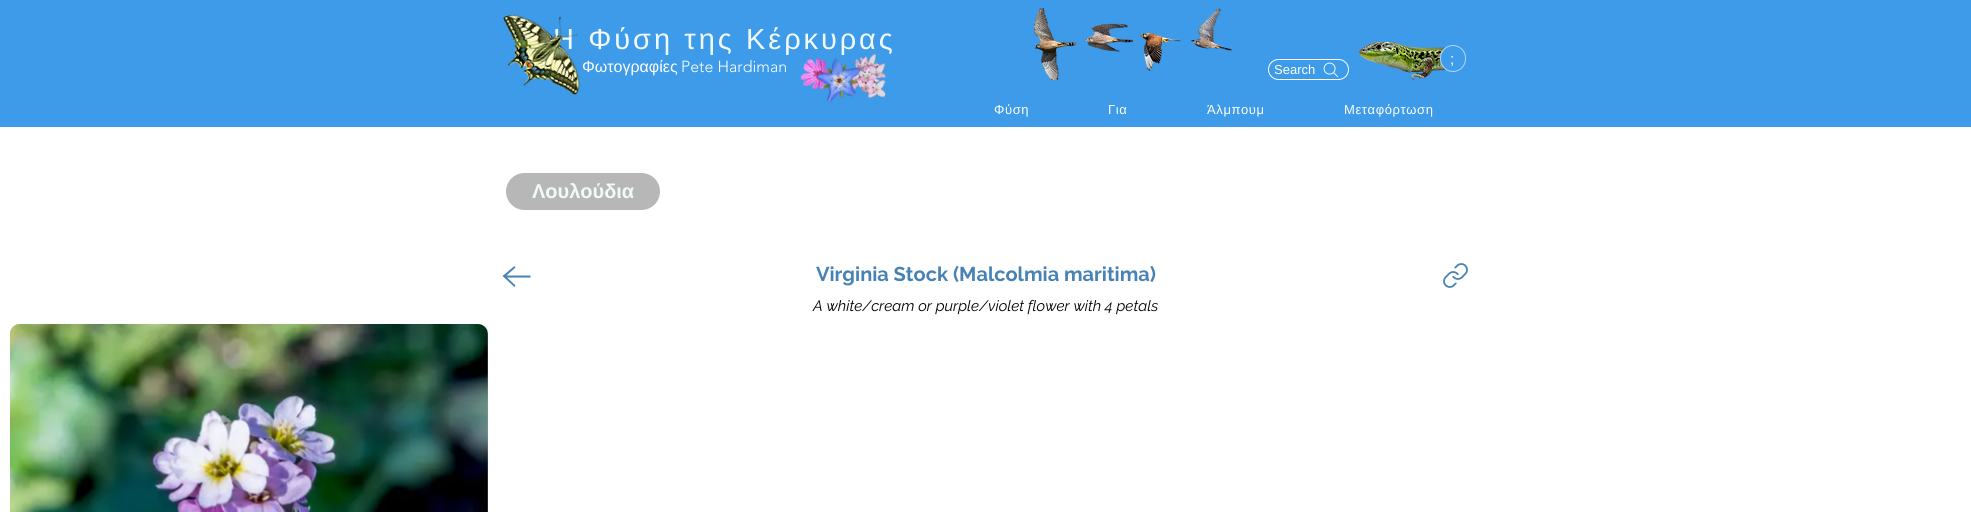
#include <cairo.h>
#include <math.h>
#include <stddef.h>


static void spaced_text(cairo_t *cr, double x, double y, const char *s, double letter, double word) {
    cairo_move_to(cr, x, y);
    while (*s) {
        char ch[5] = {0};
        int n = 0;
        do ch[n++] = *s++; while ((*s & 0xC0) == 0x80);
        cairo_show_text(cr, ch);
        cairo_rel_move_to(cr, letter + word * (*ch == ' '), 0);
    }
}

static void round_rect(cairo_t *cr, double x, double y, double w, double h, double r) {
    cairo_new_sub_path(cr);
    cairo_arc(cr, x + w - r, y + h - r, r, 0, M_PI / 2);
    cairo_arc(cr, x + r, y + h - r, r, M_PI / 2, M_PI);
    cairo_arc(cr, x + r, y + r, r, M_PI, 1.5 * M_PI);
    cairo_arc(cr, x + w - r, y + r, r, 1.5 * M_PI, 2 * M_PI);
    cairo_close_path(cr);
}

static void picture(cairo_t *cr, const char *path, double x, double y, double w, double h) {
    cairo_surface_t *image = cairo_image_surface_create_from_png(path);
    cairo_save(cr);
    cairo_set_source_surface(cr, image, x, y);
    cairo_rectangle(cr, x, y, w, h);
    cairo_fill(cr);
    cairo_restore(cr);
    cairo_surface_destroy(image);
}

int main(void) {
    cairo_surface_t *surface = cairo_image_surface_create(CAIRO_FORMAT_RGB24, 1971, 512);
    cairo_t *cr = cairo_create(surface);
    cairo_font_options_t *options = cairo_font_options_create();
    cairo_font_options_set_hint_metrics(options, CAIRO_HINT_METRICS_OFF);
    cairo_font_options_set_hint_style(options, CAIRO_HINT_STYLE_NONE);
    cairo_set_font_options(cr, options);
    cairo_set_miter_limit(cr, 4);
    cairo_set_source_rgb(cr, 1, 1, 1);
    cairo_paint(cr);
    cairo_set_source_rgb(cr, 0.239, 0.608, 0.914);
    cairo_rectangle(cr, 0, 0, 1971, 127);
    cairo_fill(cr);
    cairo_select_font_face(cr, "Liberation Sans", CAIRO_FONT_SLANT_NORMAL, CAIRO_FONT_WEIGHT_NORMAL);
    cairo_set_font_size(cr, 29);
    cairo_set_source_rgb(cr, 0.949, 0.98, 0.976);
    spaced_text(cr, 553, 49, "Η Φύση της Κέρκυρας", 2.9, 0.5);
    picture(cr, "img1.png", 502, 14, 78, 81);
    cairo_set_font_size(cr, 16);
    cairo_set_source_rgb(cr, 1, 1, 1);
    cairo_move_to(cr, 582, 72);
    cairo_show_text(cr, "Φωτογραφίες");
    cairo_select_font_face(cr, "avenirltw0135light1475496 Light", CAIRO_FONT_SLANT_NORMAL, CAIRO_FONT_WEIGHT_NORMAL);
    cairo_move_to(cr, 681, 72);
    cairo_show_text(cr, "Pete Hardiman");
    picture(cr, "img2.png", 1034, 8, 199, 72);
    picture(cr, "img3.png", 1359, 42, 102, 38);
    picture(cr, "img4.png", 800, 57, 32, 33);
    picture(cr, "img6.png", 850, 53, 37, 45);
    picture(cr, "img5.png", 817, 58, 44, 46);
    round_rect(cr, 1268.5, 59.5, 80, 20, 10);
    cairo_set_line_width(cr, 1);
    cairo_stroke(cr);
    cairo_select_font_face(cr, "Liberation Sans", CAIRO_FONT_SLANT_NORMAL, CAIRO_FONT_WEIGHT_NORMAL);
    cairo_set_font_size(cr, 13);
    cairo_move_to(cr, 1274, 74);
    cairo_show_text(cr, "Search");
    picture(cr, "img7.png", 1323, 62, 16, 16);
    cairo_set_source_rgb(cr, 0.243, 0.612, 0.918);
    round_rect(cr, 1440, 45, 26, 27, 13);
    cairo_fill(cr);
    round_rect(cr, 1440.5, 45.5, 25, 26, 12.5);
    cairo_set_source_rgba(cr, 1, 1, 1, 0.6);
    cairo_stroke(cr);
    cairo_set_font_size(cr, 15);
    cairo_set_source_rgb(cr, 1, 1, 1);
    cairo_move_to(cr, 1450, 64);
    cairo_show_text(cr, ";");
    cairo_set_font_size(cr, 13);
    spaced_text(cr, 994, 114, "Φύση", 0.6, 0);
    spaced_text(cr, 1108, 114, "Για", 0.6, 0);
    spaced_text(cr, 1207, 114, "Άλμπουμ", 0.6, 0);
    spaced_text(cr, 1344, 114, "Μεταφόρτωση", 0.6, 0);
    cairo_set_source_rgb(cr, 0.718, 0.718, 0.718);
    round_rect(cr, 506, 173, 154, 37, 18.5);
    cairo_fill(cr);
    cairo_select_font_face(cr, "Liberation Sans", CAIRO_FONT_SLANT_NORMAL, CAIRO_FONT_WEIGHT_BOLD);
    cairo_set_font_size(cr, 20);
    cairo_set_source_rgb(cr, 0.949, 0.98, 0.976);
    cairo_move_to(cr, 532, 198);
    cairo_show_text(cr, "Λουλούδια");
    cairo_set_source_rgb(cr, 0.275, 0.51, 0.706);
    cairo_new_path(cr);
    cairo_move_to(cr, 530.5, 275.5);
    cairo_line_to(cr, 506.5, 275.5);
    cairo_line_to(cr, 515.5, 267.5);
    cairo_line_to(cr, 514.5, 266);
    cairo_line_to(cr, 502.5, 276);
    cairo_line_to(cr, 514.5, 287);
    cairo_line_to(cr, 515.5, 285.5);
    cairo_line_to(cr, 507, 277.5);
    cairo_line_to(cr, 530.5, 277.5);
    cairo_close_path(cr);
    cairo_fill(cr);
    cairo_select_font_face(cr, "Raleway", CAIRO_FONT_SLANT_NORMAL, CAIRO_FONT_WEIGHT_BOLD);
    cairo_move_to(cr, 816, 281);
    cairo_show_text(cr, "Virginia Stock (Malcolmia maritima)");
    picture(cr, "img8.png", 1443, 263, 25, 25);
    cairo_select_font_face(cr, "Raleway", CAIRO_FONT_SLANT_ITALIC, CAIRO_FONT_WEIGHT_NORMAL);
    cairo_set_font_size(cr, 15);
    cairo_set_source_rgb(cr, 0, 0, 0);
    cairo_move_to(cr, 813, 311);
    cairo_show_text(cr, "A white/cream or purple/violet flower with 4 petals");
    cairo_set_source_rgb(cr, 0.647, 0.647, 0.647);
    round_rect(cr, 10, 324, 478, 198, 10);
    cairo_fill(cr);
    picture(cr, "img9.png", 10, 324, 478, 188);
    cairo_surface_write_to_png(surface, "page.png");
    cairo_font_options_destroy(options);
    cairo_destroy(cr);
    cairo_surface_destroy(surface);
    return 0;
}
